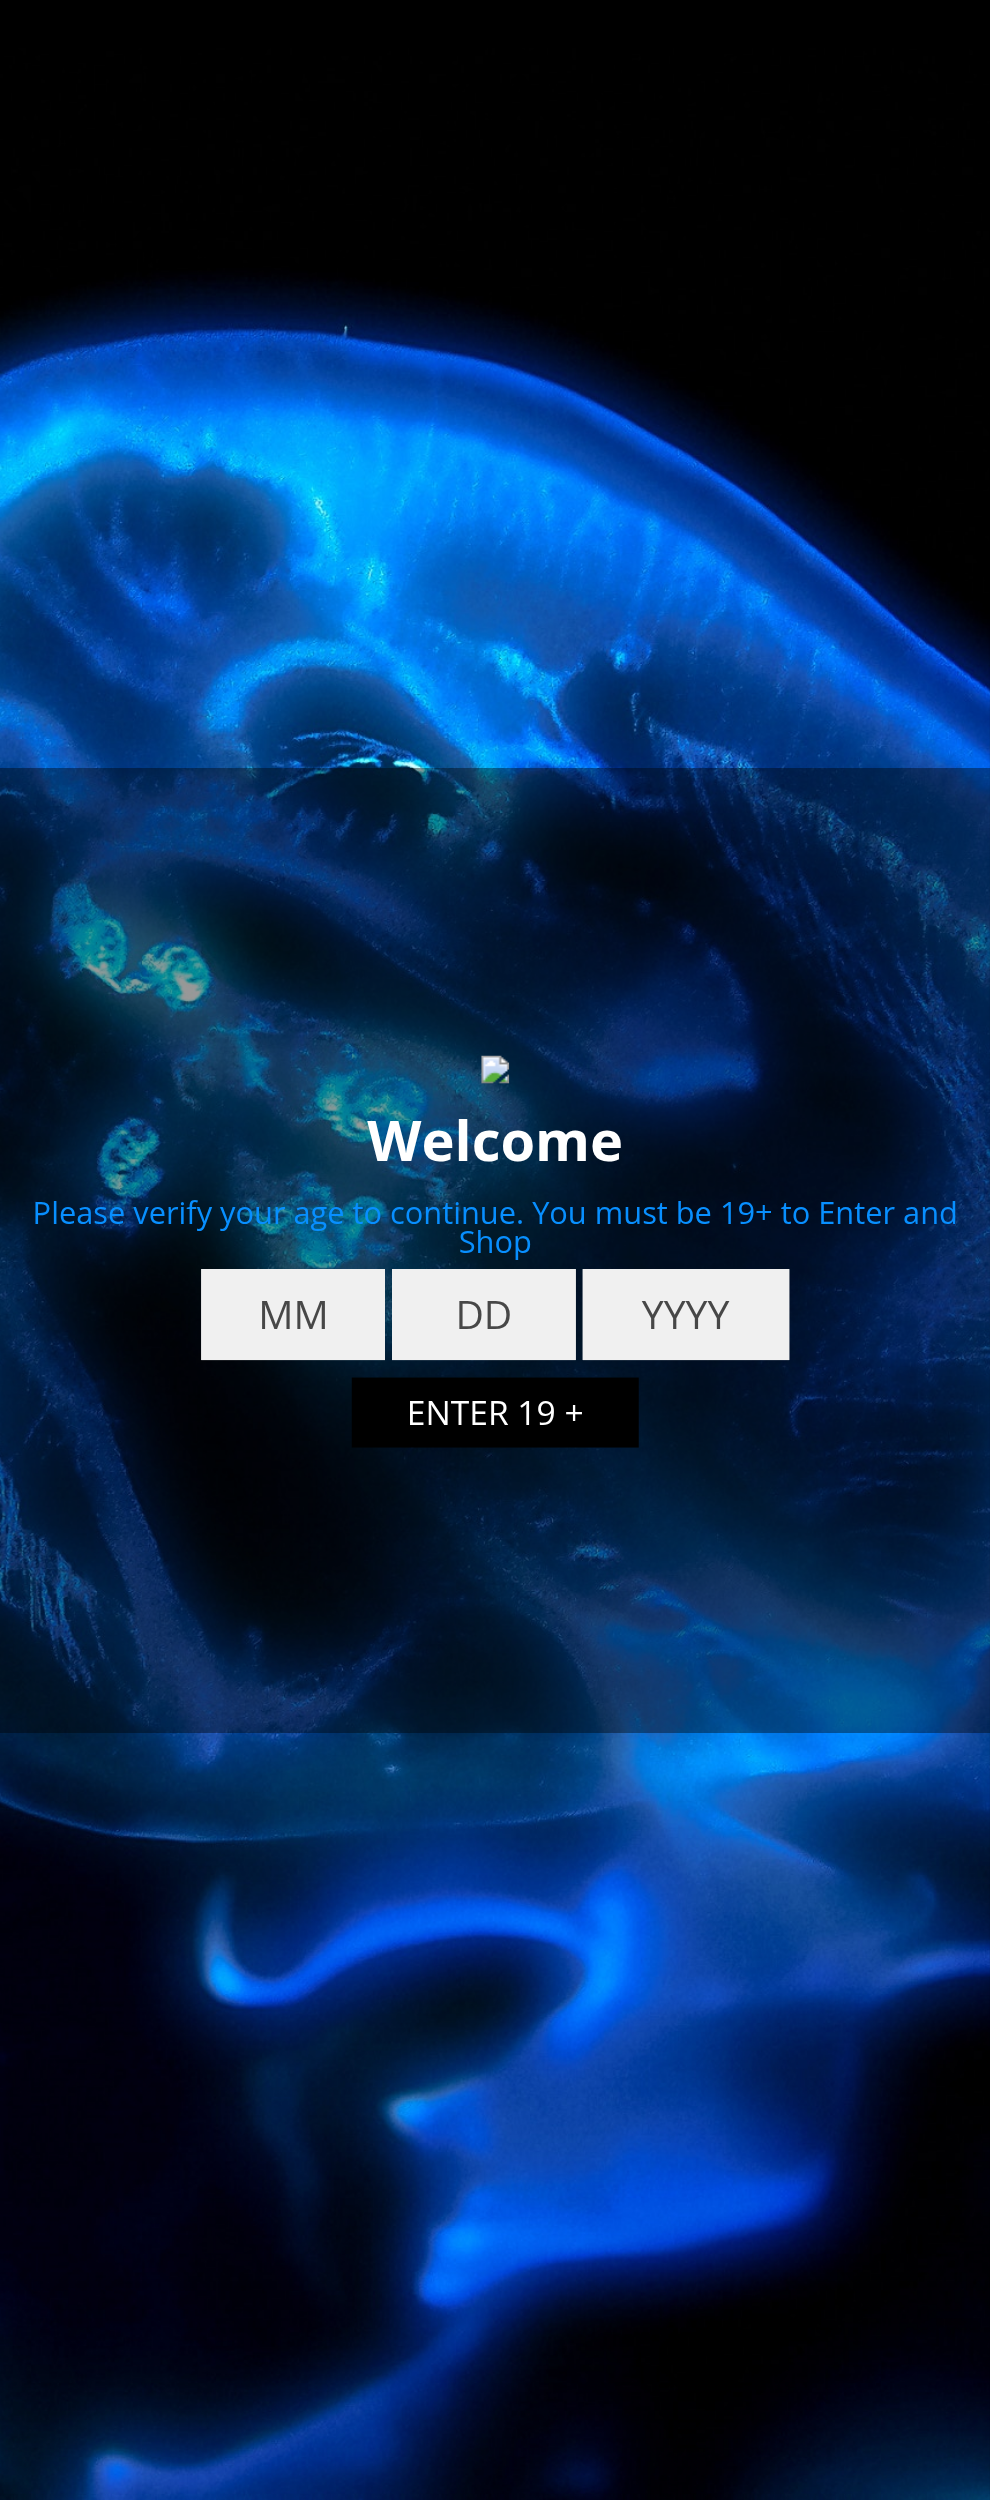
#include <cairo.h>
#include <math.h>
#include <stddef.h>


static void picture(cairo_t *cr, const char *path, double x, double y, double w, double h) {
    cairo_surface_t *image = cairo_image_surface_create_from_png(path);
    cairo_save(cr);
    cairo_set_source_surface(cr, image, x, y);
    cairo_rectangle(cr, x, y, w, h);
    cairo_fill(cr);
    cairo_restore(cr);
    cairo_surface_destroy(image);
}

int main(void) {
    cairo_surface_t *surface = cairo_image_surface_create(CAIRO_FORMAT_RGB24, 990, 2500);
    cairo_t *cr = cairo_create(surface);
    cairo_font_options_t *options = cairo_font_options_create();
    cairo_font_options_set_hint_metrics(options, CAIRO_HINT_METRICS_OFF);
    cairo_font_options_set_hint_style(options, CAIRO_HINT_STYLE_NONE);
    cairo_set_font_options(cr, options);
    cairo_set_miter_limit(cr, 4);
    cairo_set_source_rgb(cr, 0, 0, 0);
    cairo_paint(cr);
    picture(cr, "img1.png", 0, 48, 990, 2452);
    picture(cr, "img2.png", 0, 768, 990, 965);
    cairo_surface_write_to_png(surface, "page.png");
    cairo_font_options_destroy(options);
    cairo_destroy(cr);
    cairo_surface_destroy(surface);
    return 0;
}
